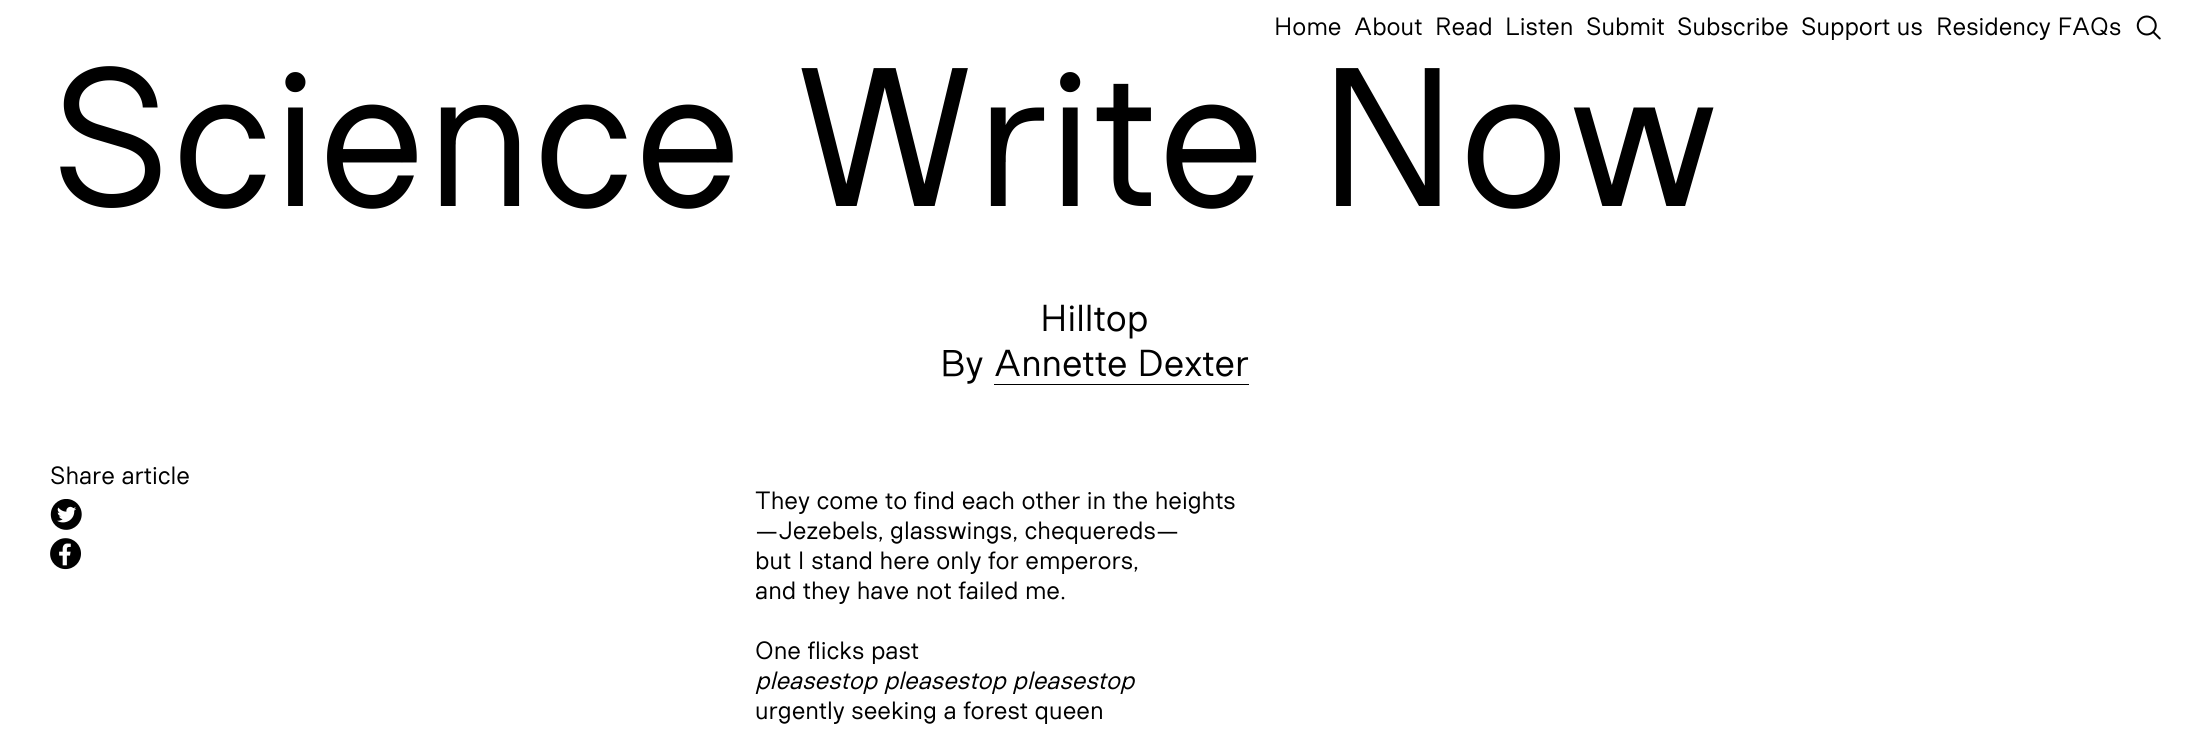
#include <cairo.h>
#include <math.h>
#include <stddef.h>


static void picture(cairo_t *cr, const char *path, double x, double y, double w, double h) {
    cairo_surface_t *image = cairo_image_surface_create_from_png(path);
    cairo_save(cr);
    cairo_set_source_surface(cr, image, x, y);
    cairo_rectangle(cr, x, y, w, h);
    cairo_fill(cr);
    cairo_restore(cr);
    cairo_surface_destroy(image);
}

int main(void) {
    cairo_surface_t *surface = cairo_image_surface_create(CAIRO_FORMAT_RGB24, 2188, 735);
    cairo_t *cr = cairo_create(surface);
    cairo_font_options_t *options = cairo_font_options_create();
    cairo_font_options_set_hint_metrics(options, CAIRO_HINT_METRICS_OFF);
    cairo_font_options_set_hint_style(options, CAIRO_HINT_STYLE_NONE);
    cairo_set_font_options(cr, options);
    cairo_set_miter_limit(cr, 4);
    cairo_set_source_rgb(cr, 1, 1, 1);
    cairo_paint(cr);
    cairo_select_font_face(cr, "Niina", CAIRO_FONT_SLANT_NORMAL, CAIRO_FONT_WEIGHT_NORMAL);
    cairo_set_font_size(cr, 25);
    cairo_set_source_rgb(cr, 0, 0, 0);
    cairo_move_to(cr, 1274, 35);
    cairo_show_text(cr, "Home");
    cairo_move_to(cr, 1354, 35);
    cairo_show_text(cr, "About");
    cairo_move_to(cr, 1435, 35);
    cairo_show_text(cr, "Read");
    cairo_move_to(cr, 1505, 35);
    cairo_show_text(cr, "Listen");
    cairo_move_to(cr, 1586, 35);
    cairo_show_text(cr, "Submit");
    cairo_move_to(cr, 1677, 35);
    cairo_show_text(cr, "Subscribe");
    cairo_move_to(cr, 1801, 35);
    cairo_show_text(cr, "Support us");
    cairo_move_to(cr, 1936, 35);
    cairo_show_text(cr, "Residency FAQs");
    picture(cr, "img1.png", 2136, 15, 25, 25);
    cairo_set_font_size(cr, 197);
    cairo_move_to(cr, 50, 206);
    cairo_show_text(cr, "Science Write Now");
    cairo_set_font_size(cr, 37.5);
    cairo_move_to(cr, 1040, 331);
    cairo_show_text(cr, "Hilltop");
    picture(cr, "img2.png", 943, 350, 40, 34);
    cairo_move_to(cr, 994, 376);
    cairo_show_text(cr, "Annette Dexter");
    cairo_rectangle(cr, 994, 384, 255, 1);
    cairo_fill(cr);
    cairo_set_font_size(cr, 25);
    cairo_move_to(cr, 50, 484);
    cairo_show_text(cr, "Share article");
    picture(cr, "img3.png", 50, 499, 32, 31);
    picture(cr, "img4.png", 50, 538, 31, 32);
    cairo_move_to(cr, 755, 509);
    cairo_show_text(cr, "They come to find each other in the heights");
    cairo_move_to(cr, 755, 539);
    cairo_show_text(cr, "—Jezebels, glasswings, chequereds—");
    cairo_move_to(cr, 755, 569);
    cairo_show_text(cr, "but I stand here only for emperors,");
    cairo_move_to(cr, 755, 599);
    cairo_show_text(cr, "and they have not failed me.");
    cairo_move_to(cr, 755, 659);
    cairo_show_text(cr, "One flicks past");
    cairo_select_font_face(cr, "Niina", CAIRO_FONT_SLANT_ITALIC, CAIRO_FONT_WEIGHT_NORMAL);
    cairo_move_to(cr, 755, 689);
    cairo_show_text(cr, "pleasestop pleasestop pleasestop");
    cairo_select_font_face(cr, "Niina", CAIRO_FONT_SLANT_NORMAL, CAIRO_FONT_WEIGHT_NORMAL);
    cairo_move_to(cr, 755, 719);
    cairo_show_text(cr, "urgently seeking a forest queen");
    cairo_surface_write_to_png(surface, "page.png");
    cairo_font_options_destroy(options);
    cairo_destroy(cr);
    cairo_surface_destroy(surface);
    return 0;
}
